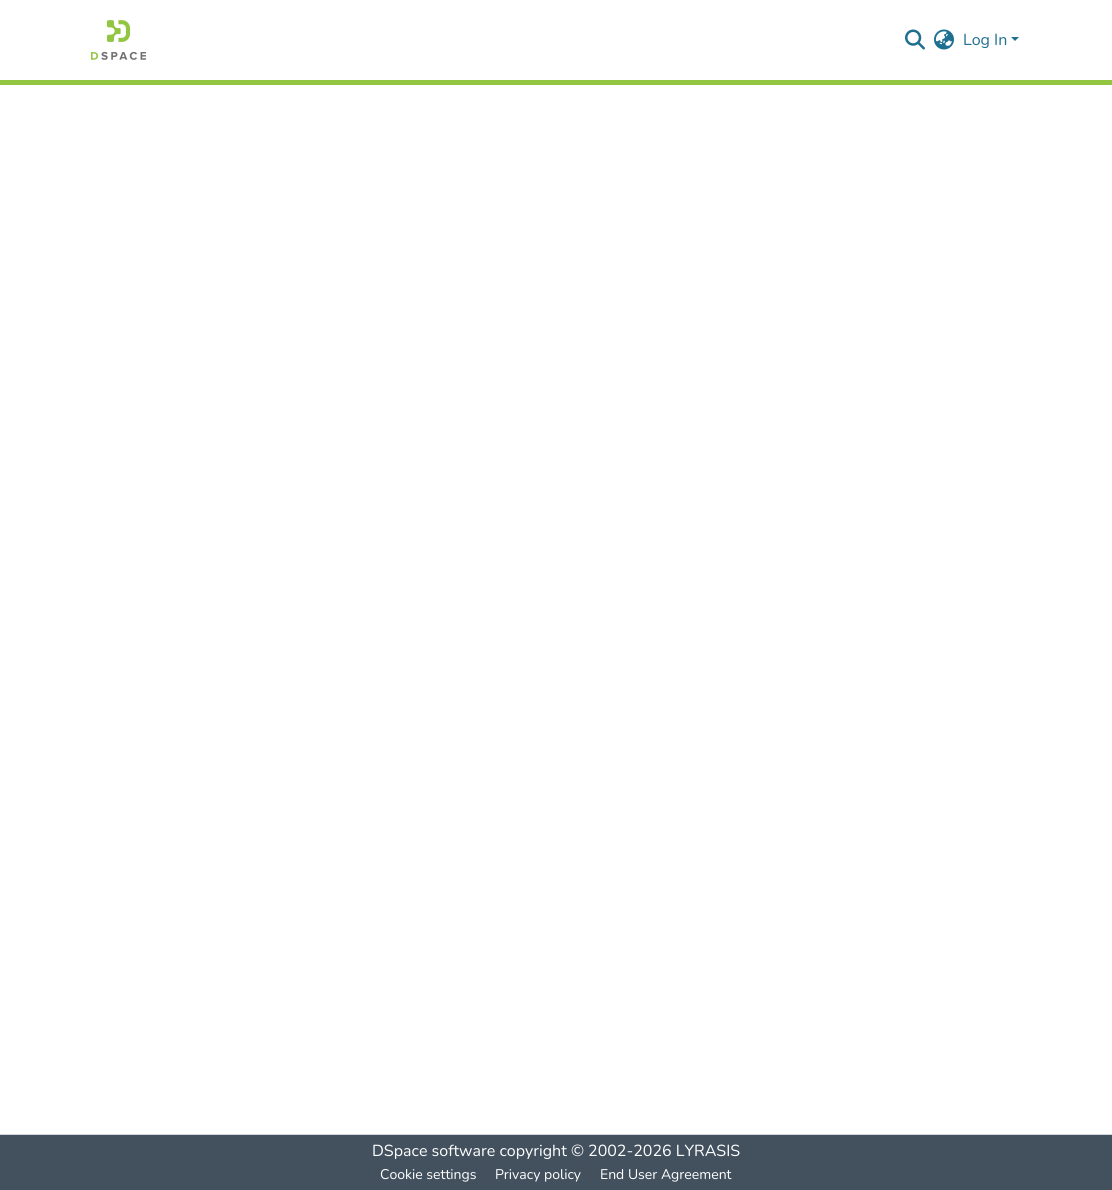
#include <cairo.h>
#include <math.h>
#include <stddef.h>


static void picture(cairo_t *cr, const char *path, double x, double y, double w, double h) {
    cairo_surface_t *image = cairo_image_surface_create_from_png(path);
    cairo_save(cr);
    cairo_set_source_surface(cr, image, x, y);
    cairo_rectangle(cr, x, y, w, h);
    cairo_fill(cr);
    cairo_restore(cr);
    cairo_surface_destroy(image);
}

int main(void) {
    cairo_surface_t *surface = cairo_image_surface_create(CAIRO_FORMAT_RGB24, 1112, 1190);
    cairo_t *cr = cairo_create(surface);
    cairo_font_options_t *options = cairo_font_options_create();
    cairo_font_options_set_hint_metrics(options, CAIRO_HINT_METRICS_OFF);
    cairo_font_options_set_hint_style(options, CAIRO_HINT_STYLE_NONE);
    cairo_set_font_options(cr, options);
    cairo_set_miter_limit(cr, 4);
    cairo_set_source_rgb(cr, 1, 1, 1);
    cairo_paint(cr);
    cairo_set_source_rgb(cr, 0.573, 0.776, 0.259);
    cairo_rectangle(cr, 0, 80, 1112, 5);
    cairo_fill(cr);
    picture(cr, "img1.png", 91, 20, 55, 40);
    picture(cr, "img2.png", 905, 29, 20, 21);
    picture(cr, "img3.png", 934, 29, 20, 21);
    cairo_select_font_face(cr, "Nunito", CAIRO_FONT_SLANT_NORMAL, CAIRO_FONT_WEIGHT_NORMAL);
    cairo_set_font_size(cr, 16);
    cairo_set_source_rgb(cr, 0.118, 0.435, 0.565);
    cairo_move_to(cr, 963, 45);
    cairo_show_text(cr, "Log In");
    cairo_new_path(cr);
    cairo_move_to(cr, 1011, 37);
    cairo_line_to(cr, 1019, 37);
    cairo_line_to(cr, 1015, 41);
    cairo_close_path(cr);
    cairo_fill(cr);
    cairo_set_source_rgb(cr, 0.263, 0.318, 0.373);
    cairo_rectangle(cr, 0, 1135, 1112, 55);
    cairo_fill(cr);
    cairo_set_source_rgb(cr, 0.808, 0.831, 0.855);
    cairo_rectangle(cr, 0, 1134, 1112, 1);
    cairo_fill(cr);
    cairo_set_source_rgb(cr, 1, 1, 1);
    cairo_move_to(cr, 372, 1156);
    cairo_show_text(cr, "DSpace software copyright © 2002-2026 LYRASIS");
    cairo_set_font_size(cr, 14);
    cairo_move_to(cr, 380, 1179);
    cairo_show_text(cr, "Cookie settings");
    cairo_set_source_rgb(cr, 0.286, 0.314, 0.341);
    cairo_rectangle(cr, 485, 1163, 1, 23);
    cairo_fill(cr);
    cairo_set_source_rgb(cr, 1, 1, 1);
    cairo_move_to(cr, 495, 1179);
    cairo_show_text(cr, "Privacy policy");
    cairo_set_source_rgb(cr, 0.286, 0.314, 0.341);
    cairo_rectangle(cr, 590, 1163, 1, 23);
    cairo_fill(cr);
    cairo_set_source_rgb(cr, 1, 1, 1);
    cairo_move_to(cr, 600, 1179);
    cairo_show_text(cr, "End User Agreement");
    cairo_surface_write_to_png(surface, "page.png");
    cairo_font_options_destroy(options);
    cairo_destroy(cr);
    cairo_surface_destroy(surface);
    return 0;
}
